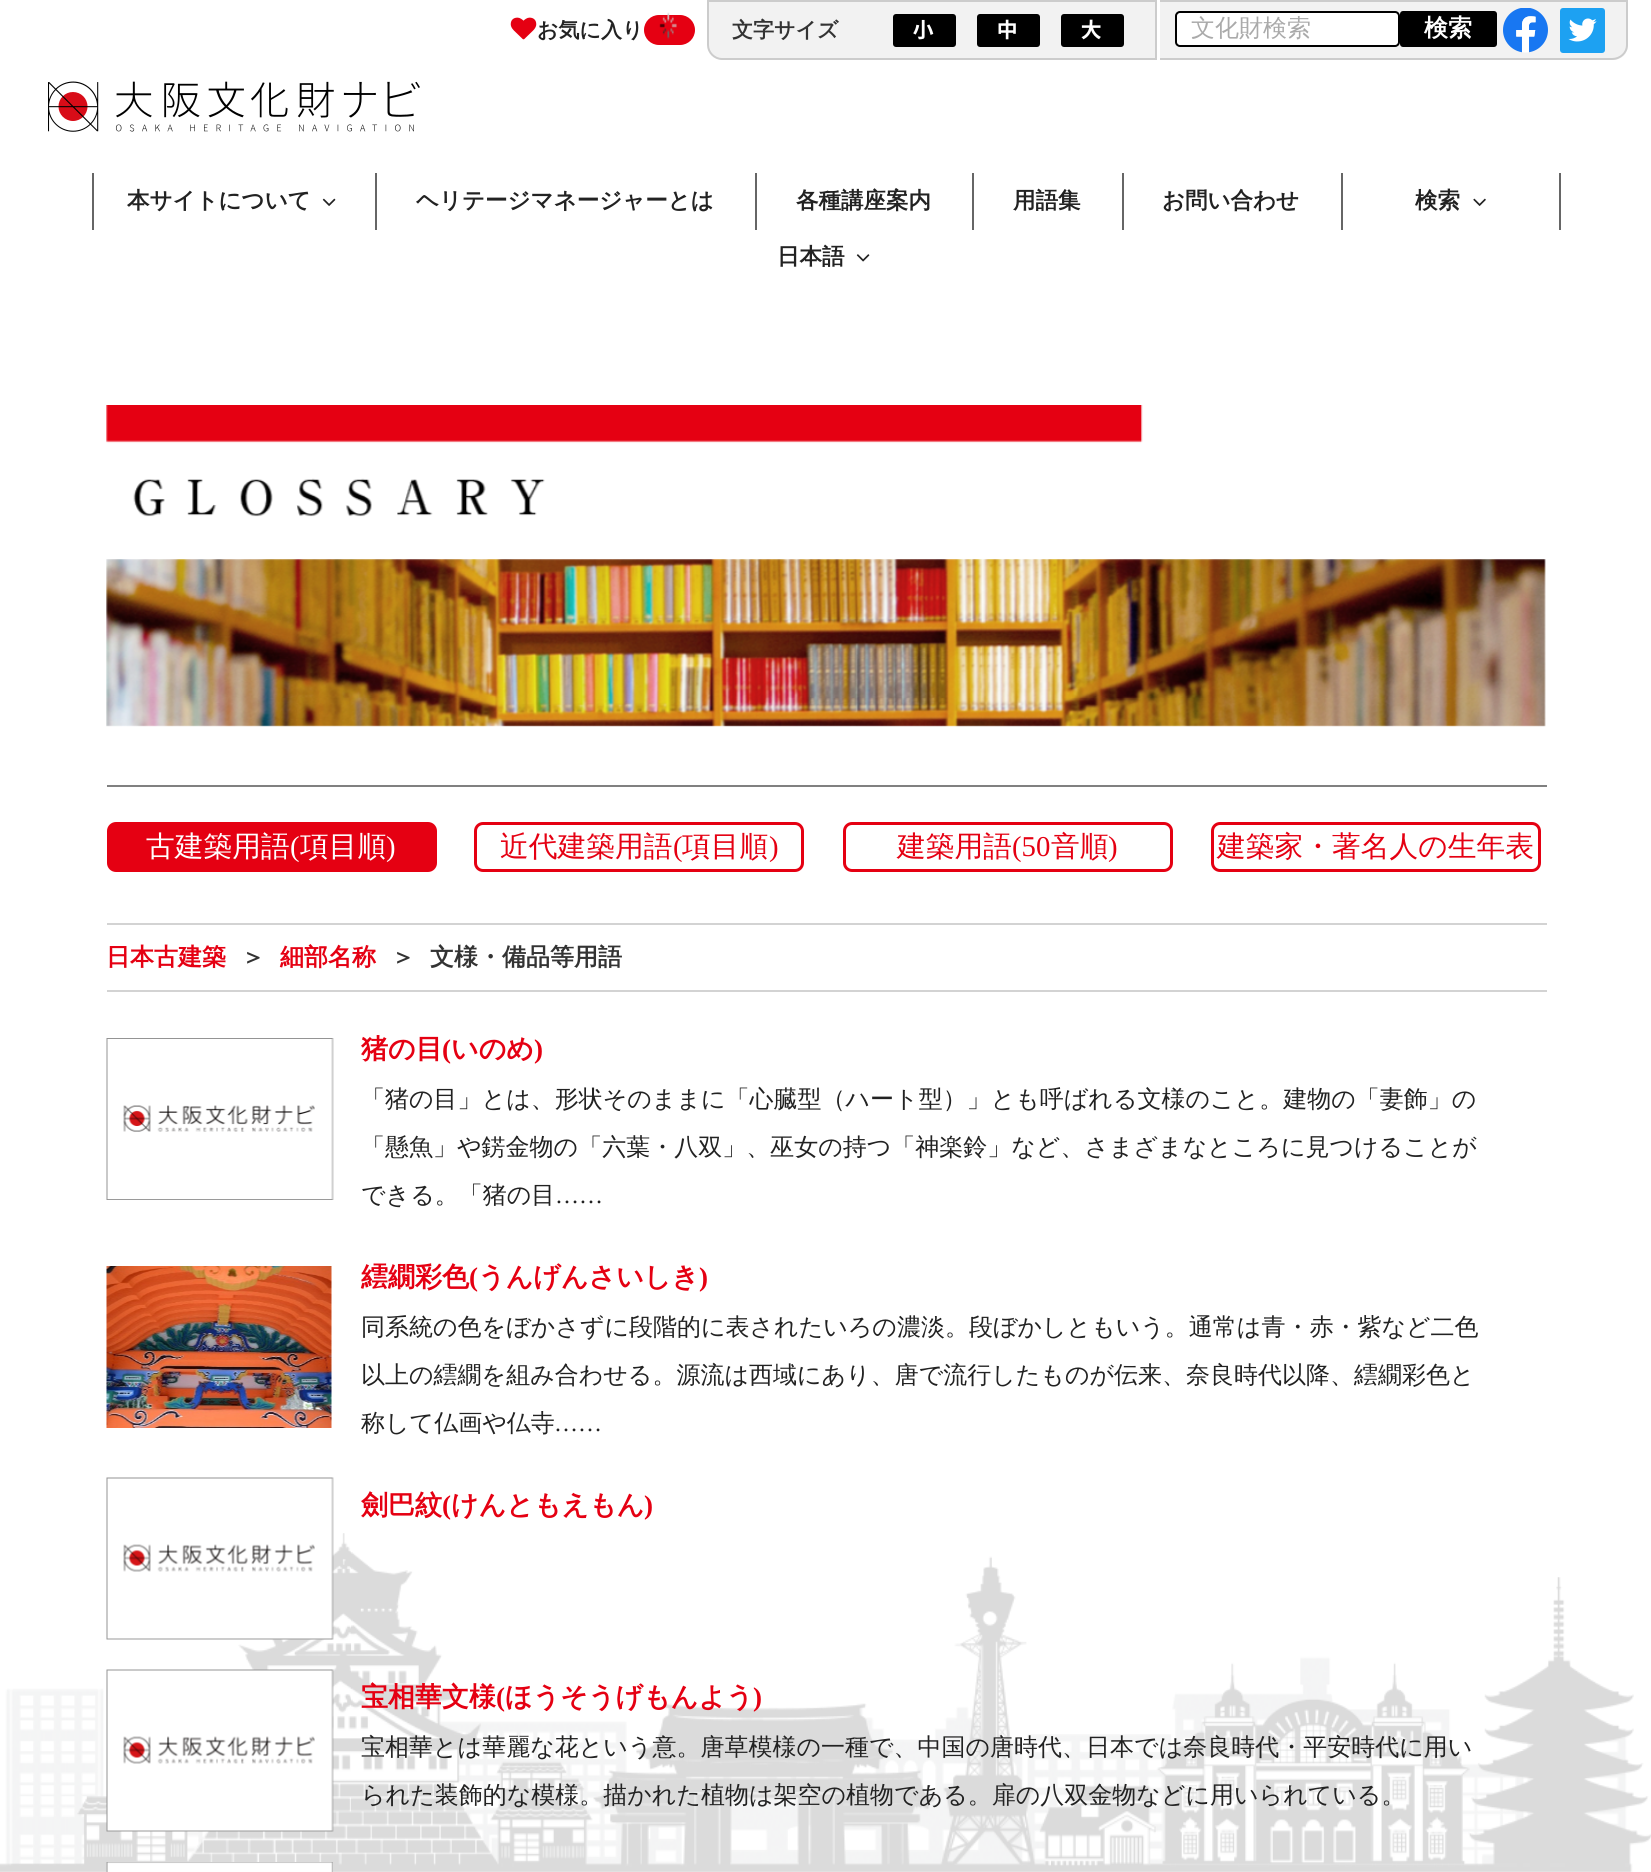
#include <cairo.h>
#include <math.h>
#include <stddef.h>


static void round_rect(cairo_t *cr, double x, double y, double w, double h, double r) {
    cairo_new_sub_path(cr);
    cairo_arc(cr, x + w - r, y + h - r, r, 0, M_PI / 2);
    cairo_arc(cr, x + r, y + h - r, r, M_PI / 2, M_PI);
    cairo_arc(cr, x + r, y + r, r, M_PI, 1.5 * M_PI);
    cairo_arc(cr, x + w - r, y + r, r, 1.5 * M_PI, 2 * M_PI);
    cairo_close_path(cr);
}

static void picture(cairo_t *cr, const char *path, double x, double y, double w, double h) {
    cairo_surface_t *image = cairo_image_surface_create_from_png(path);
    cairo_save(cr);
    cairo_set_source_surface(cr, image, x, y);
    cairo_rectangle(cr, x, y, w, h);
    cairo_fill(cr);
    cairo_restore(cr);
    cairo_surface_destroy(image);
}

int main(void) {
    cairo_surface_t *surface = cairo_image_surface_create(CAIRO_FORMAT_RGB24, 1651, 1872);
    cairo_t *cr = cairo_create(surface);
    cairo_font_options_t *options = cairo_font_options_create();
    cairo_font_options_set_hint_metrics(options, CAIRO_HINT_METRICS_OFF);
    cairo_font_options_set_hint_style(options, CAIRO_HINT_STYLE_NONE);
    cairo_set_font_options(cr, options);
    cairo_set_miter_limit(cr, 4);
    cairo_set_source_rgb(cr, 1, 1, 1);
    cairo_paint(cr);
    picture(cr, "img1.png", 0, 1533, 1651, 339);
    picture(cr, "img2.png", 510, 17, 27, 23);
    cairo_select_font_face(cr, "WenQuanYi Zen Hei", CAIRO_FONT_SLANT_NORMAL, CAIRO_FONT_WEIGHT_BOLD);
    cairo_set_font_size(cr, 21);
    cairo_set_source_rgb(cr, 0.133, 0.133, 0.133);
    cairo_move_to(cr, 537, 37);
    cairo_show_text(cr, "お気に入り");
    cairo_set_source_rgb(cr, 0.898, 0, 0.071);
    round_rect(cr, 644, 15, 51, 30, 15);
    cairo_fill(cr);
    picture(cr, "img3.png", 659, 12, 18, 28);
    cairo_set_source_rgb(cr, 0.949, 0.949, 0.949);
    cairo_new_path(cr);
    cairo_move_to(cr, 708, 1);
    cairo_line_to(cr, 1156, 1);
    cairo_line_to(cr, 1156, 59);
    cairo_line_to(cr, 722, 59);
    cairo_curve_to(cr, 714.5, 59, 708, 52.5, 708, 45);
    cairo_close_path(cr);
    cairo_fill_preserve(cr);
    cairo_set_source_rgb(cr, 0.8, 0.8, 0.8);
    cairo_stroke(cr);
    cairo_set_source_rgb(cr, 0.2, 0.2, 0.2);
    cairo_move_to(cr, 732, 37);
    cairo_show_text(cr, "文字サイズ");
    picture(cr, "img4.png", 893, 14, 63, 33);
    picture(cr, "img5.png", 977, 14, 63, 33);
    picture(cr, "img6.png", 1061, 14, 63, 33);
    cairo_set_source_rgb(cr, 0.949, 0.949, 0.949);
    cairo_new_path(cr);
    cairo_move_to(cr, 1160, 0);
    cairo_line_to(cr, 1628, 0);
    cairo_line_to(cr, 1628, 45);
    cairo_curve_to(cr, 1628, 53.5, 1621.5, 60, 1613, 60);
    cairo_line_to(cr, 1160, 60);
    cairo_close_path(cr);
    cairo_fill(cr);
    cairo_set_source_rgb(cr, 0.8, 0.8, 0.8);
    cairo_set_fill_rule(cr, CAIRO_FILL_RULE_EVEN_ODD);
    cairo_new_path(cr);
    cairo_move_to(cr, 1160, 0);
    cairo_line_to(cr, 1628, 0);
    cairo_line_to(cr, 1628, 45);
    cairo_curve_to(cr, 1628, 53, 1621, 60, 1612, 60);
    cairo_line_to(cr, 1160, 60);
    cairo_close_path(cr);
    cairo_move_to(cr, 1160, 2);
    cairo_line_to(cr, 1626, 2);
    cairo_line_to(cr, 1626, 45);
    cairo_curve_to(cr, 1626, 52, 1620, 58, 1612, 58);
    cairo_line_to(cr, 1160, 58);
    cairo_close_path(cr);
    cairo_fill(cr);
    cairo_set_source_rgb(cr, 1, 1, 1);
    round_rect(cr, 1176, 12, 223, 34, 4);
    cairo_fill_preserve(cr);
    cairo_set_source_rgb(cr, 0, 0, 0);
    cairo_stroke(cr);
    cairo_select_font_face(cr, "WenQuanYi Zen Hei Medium", CAIRO_FONT_SLANT_NORMAL, CAIRO_FONT_WEIGHT_NORMAL);
    cairo_set_font_size(cr, 24);
    cairo_set_source_rgb(cr, 0.667, 0.667, 0.667);
    cairo_move_to(cr, 1191, 36);
    cairo_show_text(cr, "文化財検索");
    cairo_set_source_rgb(cr, 0, 0, 0);
    round_rect(cr, 1400, 11, 97, 36, 3);
    cairo_fill(cr);
    cairo_select_font_face(cr, "WenQuanYi Zen Hei", CAIRO_FONT_SLANT_NORMAL, CAIRO_FONT_WEIGHT_BOLD);
    cairo_set_source_rgb(cr, 1, 1, 1);
    cairo_move_to(cr, 1424, 36);
    cairo_show_text(cr, "検索");
    picture(cr, "img7.png", 1503, 8, 45, 45);
    picture(cr, "img8.png", 1560, 8, 45, 45);
    picture(cr, "img9.png", 48, 81, 372, 51);
    cairo_set_source_rgb(cr, 0.4, 0.4, 0.4);
    cairo_rectangle(cr, 375, 173, 2, 57);
    cairo_fill(cr);
    cairo_rectangle(cr, 92, 173, 2, 57);
    cairo_fill(cr);
    cairo_set_font_size(cr, 22.5);
    cairo_set_source_rgb(cr, 0.133, 0.133, 0.133);
    cairo_move_to(cr, 127, 208);
    cairo_show_text(cr, "本サイトについて");
    picture(cr, "img10.png", 322, 198, 14, 8);
    cairo_set_source_rgb(cr, 0.4, 0.4, 0.4);
    cairo_rectangle(cr, 755, 173, 2, 57);
    cairo_fill(cr);
    cairo_set_source_rgb(cr, 0.133, 0.133, 0.133);
    cairo_move_to(cr, 416, 208);
    cairo_show_text(cr, "ヘリテージマネージャーとは");
    cairo_set_source_rgb(cr, 0.4, 0.4, 0.4);
    cairo_rectangle(cr, 972, 173, 2, 57);
    cairo_fill(cr);
    cairo_set_source_rgb(cr, 0.133, 0.133, 0.133);
    cairo_move_to(cr, 796, 208);
    cairo_show_text(cr, "各種講座案内");
    cairo_set_source_rgb(cr, 0.4, 0.4, 0.4);
    cairo_rectangle(cr, 1122, 173, 2, 57);
    cairo_fill(cr);
    cairo_set_source_rgb(cr, 0.133, 0.133, 0.133);
    cairo_move_to(cr, 1013, 208);
    cairo_show_text(cr, "用語集");
    cairo_set_source_rgb(cr, 0.4, 0.4, 0.4);
    cairo_rectangle(cr, 1341, 173, 2, 57);
    cairo_fill(cr);
    cairo_set_source_rgb(cr, 0.133, 0.133, 0.133);
    cairo_move_to(cr, 1162, 208);
    cairo_show_text(cr, "お問い合わせ");
    cairo_set_source_rgb(cr, 0.4, 0.4, 0.4);
    cairo_rectangle(cr, 1559, 173, 2, 57);
    cairo_fill(cr);
    cairo_set_source_rgb(cr, 0.133, 0.133, 0.133);
    cairo_move_to(cr, 1415, 208);
    cairo_show_text(cr, "検索");
    picture(cr, "img11.png", 1473, 198, 13, 8);
    cairo_move_to(cr, 777, 264);
    cairo_show_text(cr, "日本語");
    picture(cr, "img12.png", 856, 254, 14, 8);
    picture(cr, "img13.png", 106, 405, 1440, 322);
    cairo_set_source_rgb(cr, 0.502, 0.502, 0.502);
    cairo_rectangle(cr, 107, 785, 1440, 2);
    cairo_fill(cr);
    cairo_set_source_rgb(cr, 0.898, 0, 0.071);
    round_rect(cr, 108.5, 823.5, 327, 47, 7.5);
    cairo_fill_preserve(cr);
    cairo_set_line_width(cr, 3);
    cairo_stroke(cr);
    cairo_select_font_face(cr, "WenQuanYi Zen Hei Medium", CAIRO_FONT_SLANT_NORMAL, CAIRO_FONT_WEIGHT_NORMAL);
    cairo_set_font_size(cr, 28.75);
    cairo_set_source_rgb(cr, 1, 1, 1);
    cairo_move_to(cr, 146, 856);
    cairo_show_text(cr, "古建築用語");
    cairo_select_font_face(cr, "Liberation Serif", CAIRO_FONT_SLANT_NORMAL, CAIRO_FONT_WEIGHT_NORMAL);
    cairo_move_to(cr, 290, 856);
    cairo_show_text(cr, "(");
    cairo_select_font_face(cr, "WenQuanYi Zen Hei Medium", CAIRO_FONT_SLANT_NORMAL, CAIRO_FONT_WEIGHT_NORMAL);
    cairo_move_to(cr, 300, 856);
    cairo_show_text(cr, "項目順");
    cairo_select_font_face(cr, "Liberation Serif", CAIRO_FONT_SLANT_NORMAL, CAIRO_FONT_WEIGHT_NORMAL);
    cairo_move_to(cr, 386, 856);
    cairo_show_text(cr, ")");
    round_rect(cr, 475.5, 823.5, 327, 47, 7.5);
    cairo_set_source_rgb(cr, 0.898, 0, 0.071);
    cairo_stroke(cr);
    cairo_select_font_face(cr, "WenQuanYi Zen Hei Medium", CAIRO_FONT_SLANT_NORMAL, CAIRO_FONT_WEIGHT_NORMAL);
    cairo_move_to(cr, 500, 856);
    cairo_show_text(cr, "近代建築用語");
    cairo_select_font_face(cr, "Liberation Serif", CAIRO_FONT_SLANT_NORMAL, CAIRO_FONT_WEIGHT_NORMAL);
    cairo_move_to(cr, 673, 856);
    cairo_show_text(cr, "(");
    cairo_select_font_face(cr, "WenQuanYi Zen Hei Medium", CAIRO_FONT_SLANT_NORMAL, CAIRO_FONT_WEIGHT_NORMAL);
    cairo_move_to(cr, 682, 856);
    cairo_show_text(cr, "項目順");
    cairo_select_font_face(cr, "Liberation Serif", CAIRO_FONT_SLANT_NORMAL, CAIRO_FONT_WEIGHT_NORMAL);
    cairo_move_to(cr, 769, 856);
    cairo_show_text(cr, ")");
    round_rect(cr, 844.5, 823.5, 327, 47, 7.5);
    cairo_stroke(cr);
    cairo_select_font_face(cr, "WenQuanYi Zen Hei Medium", CAIRO_FONT_SLANT_NORMAL, CAIRO_FONT_WEIGHT_NORMAL);
    cairo_move_to(cr, 897, 856);
    cairo_show_text(cr, "建築用語");
    cairo_select_font_face(cr, "Liberation Serif", CAIRO_FONT_SLANT_NORMAL, CAIRO_FONT_WEIGHT_NORMAL);
    cairo_move_to(cr, 1012, 856);
    cairo_show_text(cr, "(50");
    cairo_select_font_face(cr, "WenQuanYi Zen Hei Medium", CAIRO_FONT_SLANT_NORMAL, CAIRO_FONT_WEIGHT_NORMAL);
    cairo_move_to(cr, 1051, 856);
    cairo_show_text(cr, "音順");
    cairo_select_font_face(cr, "Liberation Serif", CAIRO_FONT_SLANT_NORMAL, CAIRO_FONT_WEIGHT_NORMAL);
    cairo_move_to(cr, 1108, 856);
    cairo_show_text(cr, ")");
    round_rect(cr, 1212.5, 823.5, 327, 47, 7.5);
    cairo_stroke(cr);
    cairo_select_font_face(cr, "WenQuanYi Zen Hei Medium", CAIRO_FONT_SLANT_NORMAL, CAIRO_FONT_WEIGHT_NORMAL);
    cairo_move_to(cr, 1217, 856);
    cairo_show_text(cr, "建築家・著名人の生年表");
    cairo_set_source_rgb(cr, 0.827, 0.827, 0.827);
    cairo_rectangle(cr, 107, 923, 1440, 2);
    cairo_fill(cr);
    cairo_rectangle(cr, 107, 990, 1440, 2);
    cairo_fill(cr);
    cairo_select_font_face(cr, "WenQuanYi Zen Hei", CAIRO_FONT_SLANT_NORMAL, CAIRO_FONT_WEIGHT_BOLD);
    cairo_set_font_size(cr, 24);
    cairo_set_source_rgb(cr, 0.898, 0, 0.071);
    cairo_move_to(cr, 106, 965);
    cairo_show_text(cr, "日本古建築");
    cairo_set_source_rgb(cr, 0.2, 0.2, 0.2);
    cairo_move_to(cr, 241, 965);
    cairo_show_text(cr, "＞");
    cairo_set_source_rgb(cr, 0.898, 0, 0.071);
    cairo_move_to(cr, 280, 965);
    cairo_show_text(cr, "細部名称");
    cairo_set_source_rgb(cr, 0.2, 0.2, 0.2);
    cairo_move_to(cr, 391, 965);
    cairo_show_text(cr, "＞");
    cairo_move_to(cr, 430, 965);
    cairo_show_text(cr, "文様・備品等用語");
    picture(cr, "img14.png", 106, 1038, 228, 162);
    cairo_set_font_size(cr, 27);
    cairo_set_source_rgb(cr, 0.898, 0, 0.071);
    cairo_move_to(cr, 361, 1058);
    cairo_show_text(cr, "猪の目");
    cairo_select_font_face(cr, "Liberation Serif", CAIRO_FONT_SLANT_NORMAL, CAIRO_FONT_WEIGHT_BOLD);
    cairo_move_to(cr, 442, 1058);
    cairo_show_text(cr, "(");
    cairo_select_font_face(cr, "WenQuanYi Zen Hei", CAIRO_FONT_SLANT_NORMAL, CAIRO_FONT_WEIGHT_BOLD);
    cairo_move_to(cr, 451, 1058);
    cairo_show_text(cr, "いのめ");
    cairo_select_font_face(cr, "Liberation Serif", CAIRO_FONT_SLANT_NORMAL, CAIRO_FONT_WEIGHT_BOLD);
    cairo_move_to(cr, 534, 1058);
    cairo_show_text(cr, ")");
    cairo_select_font_face(cr, "WenQuanYi Zen Hei Medium", CAIRO_FONT_SLANT_NORMAL, CAIRO_FONT_WEIGHT_NORMAL);
    cairo_set_font_size(cr, 24);
    cairo_set_source_rgb(cr, 0.133, 0.133, 0.133);
    cairo_move_to(cr, 361, 1107);
    cairo_show_text(cr, "「猪の目」とは、形状そのままに「心臓型（ハート型）」とも呼ばれる文様のこと。建物の「妻飾」の");
    cairo_move_to(cr, 361, 1155);
    cairo_show_text(cr, "「懸魚」や錺金物の「六葉・八双」、巫女の持つ「神楽鈴」など、さまざまなところに見つけることが");
    cairo_move_to(cr, 361, 1203);
    cairo_show_text(cr, "できる。「猪の目");
    cairo_select_font_face(cr, "Liberation Serif", CAIRO_FONT_SLANT_NORMAL, CAIRO_FONT_WEIGHT_NORMAL);
    cairo_move_to(cr, 555, 1203);
    cairo_show_text(cr, "……");
    picture(cr, "img15.png", 106, 1266, 226, 162);
    cairo_select_font_face(cr, "WenQuanYi Zen Hei", CAIRO_FONT_SLANT_NORMAL, CAIRO_FONT_WEIGHT_BOLD);
    cairo_set_font_size(cr, 27);
    cairo_set_source_rgb(cr, 0.898, 0, 0.071);
    cairo_move_to(cr, 361, 1286);
    cairo_show_text(cr, "繧繝彩色");
    cairo_select_font_face(cr, "Liberation Serif", CAIRO_FONT_SLANT_NORMAL, CAIRO_FONT_WEIGHT_BOLD);
    cairo_move_to(cr, 469, 1286);
    cairo_show_text(cr, "(");
    cairo_select_font_face(cr, "WenQuanYi Zen Hei", CAIRO_FONT_SLANT_NORMAL, CAIRO_FONT_WEIGHT_BOLD);
    cairo_move_to(cr, 478, 1286);
    cairo_show_text(cr, "うんげんさいしき");
    cairo_select_font_face(cr, "Liberation Serif", CAIRO_FONT_SLANT_NORMAL, CAIRO_FONT_WEIGHT_BOLD);
    cairo_move_to(cr, 699, 1286);
    cairo_show_text(cr, ")");
    cairo_select_font_face(cr, "WenQuanYi Zen Hei Medium", CAIRO_FONT_SLANT_NORMAL, CAIRO_FONT_WEIGHT_NORMAL);
    cairo_set_font_size(cr, 24);
    cairo_set_source_rgb(cr, 0.133, 0.133, 0.133);
    cairo_move_to(cr, 361, 1335);
    cairo_show_text(cr, "同系統の色をぼかさずに段階的に表されたいろの濃淡。段ぼかしともいう。通常は青・赤・紫など二色");
    cairo_move_to(cr, 361, 1383);
    cairo_show_text(cr, "以上の繧繝を組み合わせる。源流は西域にあり、唐で流行したものが伝来、奈良時代以降、繧繝彩色と");
    cairo_move_to(cr, 361, 1431);
    cairo_show_text(cr, "称して仏画や仏寺");
    cairo_select_font_face(cr, "Liberation Serif", CAIRO_FONT_SLANT_NORMAL, CAIRO_FONT_WEIGHT_NORMAL);
    cairo_move_to(cr, 554, 1431);
    cairo_show_text(cr, "……");
    picture(cr, "img16.png", 106, 1477, 228, 163);
    cairo_select_font_face(cr, "WenQuanYi Zen Hei", CAIRO_FONT_SLANT_NORMAL, CAIRO_FONT_WEIGHT_BOLD);
    cairo_set_font_size(cr, 27);
    cairo_set_source_rgb(cr, 0.898, 0, 0.071);
    cairo_move_to(cr, 361, 1514);
    cairo_show_text(cr, "劍巴紋");
    cairo_select_font_face(cr, "Liberation Serif", CAIRO_FONT_SLANT_NORMAL, CAIRO_FONT_WEIGHT_BOLD);
    cairo_move_to(cr, 442, 1514);
    cairo_show_text(cr, "(");
    cairo_select_font_face(cr, "WenQuanYi Zen Hei", CAIRO_FONT_SLANT_NORMAL, CAIRO_FONT_WEIGHT_BOLD);
    cairo_move_to(cr, 451, 1514);
    cairo_show_text(cr, "けんともえもん");
    cairo_select_font_face(cr, "Liberation Serif", CAIRO_FONT_SLANT_NORMAL, CAIRO_FONT_WEIGHT_BOLD);
    cairo_move_to(cr, 644, 1514);
    cairo_show_text(cr, ")");
    picture(cr, "img17.png", 106, 1669, 228, 163);
    cairo_select_font_face(cr, "WenQuanYi Zen Hei", CAIRO_FONT_SLANT_NORMAL, CAIRO_FONT_WEIGHT_BOLD);
    cairo_move_to(cr, 361, 1706);
    cairo_show_text(cr, "宝相華文様");
    cairo_select_font_face(cr, "Liberation Serif", CAIRO_FONT_SLANT_NORMAL, CAIRO_FONT_WEIGHT_BOLD);
    cairo_move_to(cr, 496, 1706);
    cairo_show_text(cr, "(");
    cairo_select_font_face(cr, "WenQuanYi Zen Hei", CAIRO_FONT_SLANT_NORMAL, CAIRO_FONT_WEIGHT_BOLD);
    cairo_move_to(cr, 505, 1706);
    cairo_show_text(cr, "ほうそうげもんよう");
    cairo_select_font_face(cr, "Liberation Serif", CAIRO_FONT_SLANT_NORMAL, CAIRO_FONT_WEIGHT_BOLD);
    cairo_move_to(cr, 753, 1706);
    cairo_show_text(cr, ")");
    cairo_select_font_face(cr, "WenQuanYi Zen Hei Medium", CAIRO_FONT_SLANT_NORMAL, CAIRO_FONT_WEIGHT_NORMAL);
    cairo_set_font_size(cr, 24);
    cairo_set_source_rgb(cr, 0.133, 0.133, 0.133);
    cairo_move_to(cr, 361, 1755);
    cairo_show_text(cr, "宝相華とは華麗な花という意。唐草模様の一種で、中国の唐時代、日本では奈良時代・平安時代に用い");
    cairo_move_to(cr, 361, 1803);
    cairo_show_text(cr, "られた装飾的な模様。描かれた植物は架空の植物である。扉の八双金物などに用いられている。");
    picture(cr, "img18.png", 106, 1862, 227, 10);
    cairo_surface_write_to_png(surface, "page.png");
    cairo_font_options_destroy(options);
    cairo_destroy(cr);
    cairo_surface_destroy(surface);
    return 0;
}
